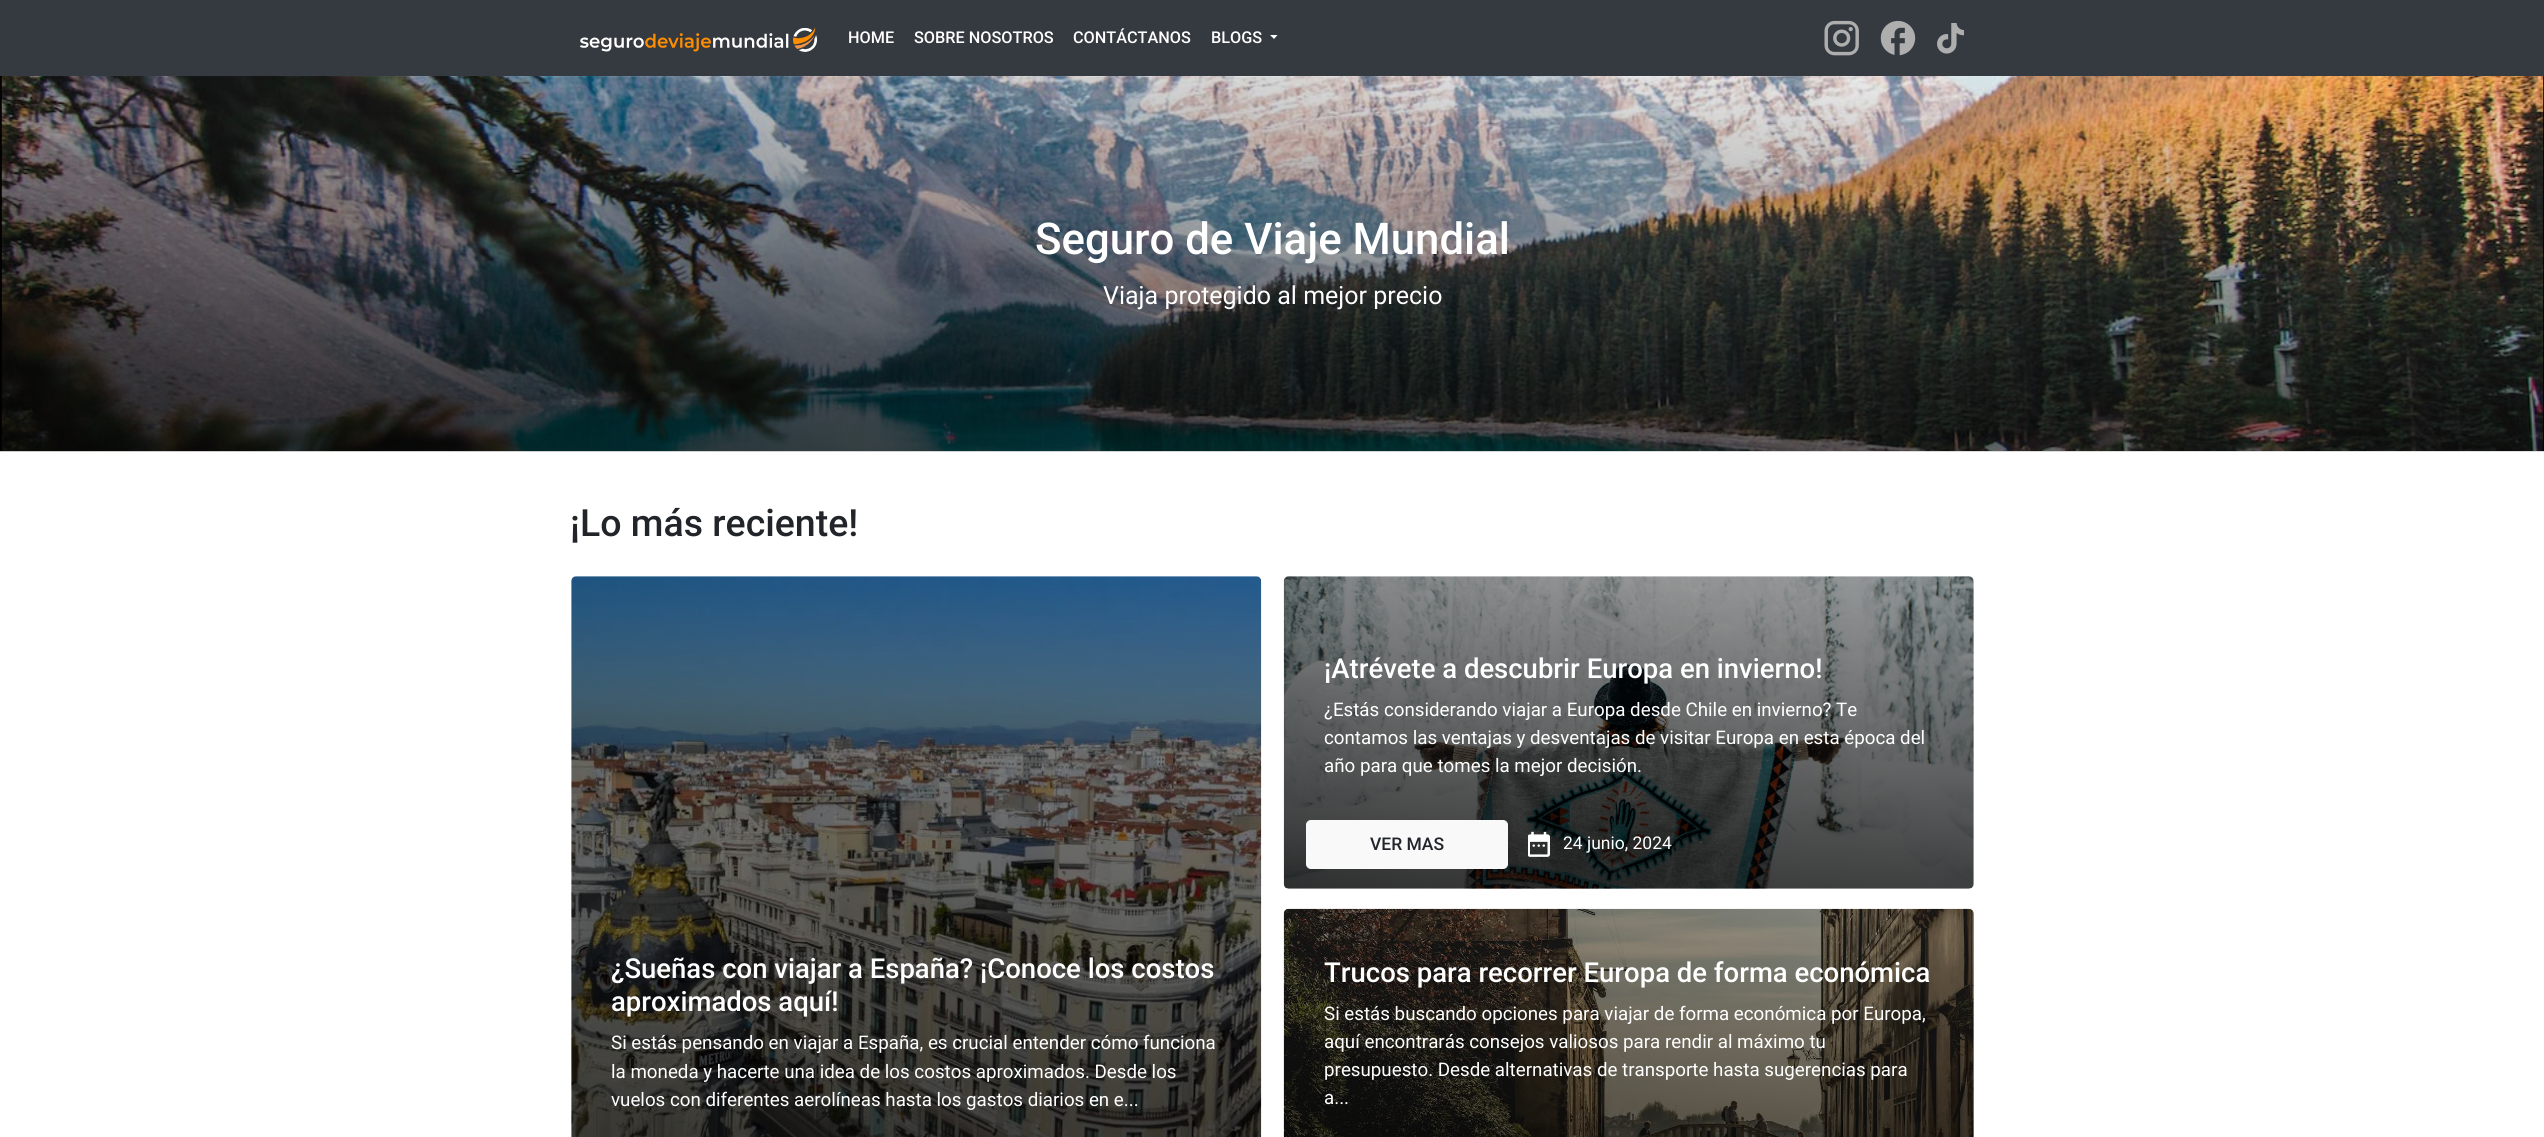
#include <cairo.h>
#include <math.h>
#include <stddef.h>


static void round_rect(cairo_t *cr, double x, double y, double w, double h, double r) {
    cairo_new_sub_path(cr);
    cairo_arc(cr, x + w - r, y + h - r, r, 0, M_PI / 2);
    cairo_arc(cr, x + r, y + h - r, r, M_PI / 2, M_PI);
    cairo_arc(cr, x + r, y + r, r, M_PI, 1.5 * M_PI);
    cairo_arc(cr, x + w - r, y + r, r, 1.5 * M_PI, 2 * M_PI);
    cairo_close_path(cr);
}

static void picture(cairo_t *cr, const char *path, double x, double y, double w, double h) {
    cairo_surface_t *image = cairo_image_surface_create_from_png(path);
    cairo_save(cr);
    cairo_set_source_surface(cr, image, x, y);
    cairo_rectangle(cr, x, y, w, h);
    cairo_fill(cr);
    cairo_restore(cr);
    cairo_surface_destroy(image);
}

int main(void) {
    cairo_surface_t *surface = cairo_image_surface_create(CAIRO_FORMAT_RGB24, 2544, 1137);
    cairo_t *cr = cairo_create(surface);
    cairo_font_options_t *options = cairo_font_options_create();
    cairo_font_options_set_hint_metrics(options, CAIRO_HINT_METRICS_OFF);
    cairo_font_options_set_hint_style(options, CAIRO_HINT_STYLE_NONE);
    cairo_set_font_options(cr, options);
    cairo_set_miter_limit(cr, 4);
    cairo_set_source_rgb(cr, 1, 1, 1);
    cairo_paint(cr);
    cairo_set_source_rgb(cr, 0.204, 0.227, 0.251);
    cairo_rectangle(cr, 0, 0, 2544, 76);
    cairo_fill(cr);
    picture(cr, "img1.png", 580, 28, 237, 24);
    cairo_select_font_face(cr, "Roboto Medium", CAIRO_FONT_SLANT_NORMAL, CAIRO_FONT_WEIGHT_NORMAL);
    cairo_set_font_size(cr, 16.25);
    cairo_set_source_rgb(cr, 1, 1, 1);
    cairo_move_to(cr, 848, 43);
    cairo_show_text(cr, "HOME");
    cairo_move_to(cr, 914, 43);
    cairo_show_text(cr, "SOBRE NOSOTROS");
    cairo_move_to(cr, 1073, 43);
    cairo_show_text(cr, "CONTÁCTANOS");
    cairo_move_to(cr, 1211, 43);
    cairo_show_text(cr, "BLOGS");
    cairo_new_path(cr);
    cairo_move_to(cr, 1270, 35);
    cairo_line_to(cr, 1277.5, 35);
    cairo_line_to(cr, 1274, 39);
    cairo_close_path(cr);
    cairo_fill(cr);
    picture(cr, "img2.png", 1824, 20, 35, 36);
    picture(cr, "img3.png", 1880, 20, 36, 36);
    picture(cr, "img4.png", 1937, 23, 27, 31);
    picture(cr, "img5.png", 0, 76, 2544, 376);
    cairo_set_font_size(cr, 43.75);
    cairo_move_to(cr, 1035, 254);
    cairo_show_text(cr, "Seguro de Viaje Mundial");
    cairo_select_font_face(cr, "Roboto", CAIRO_FONT_SLANT_NORMAL, CAIRO_FONT_WEIGHT_NORMAL);
    cairo_set_font_size(cr, 25);
    cairo_move_to(cr, 1103, 304);
    cairo_show_text(cr, "Viaja protegido al mejor precio");
    cairo_select_font_face(cr, "Roboto Medium", CAIRO_FONT_SLANT_NORMAL, CAIRO_FONT_WEIGHT_NORMAL);
    cairo_set_font_size(cr, 37.5);
    cairo_set_source_rgb(cr, 0.129, 0.145, 0.161);
    cairo_move_to(cr, 570, 536);
    cairo_show_text(cr, "¡Lo más reciente!");
    picture(cr, "img6.png", 571, 576, 691, 561);
    cairo_set_font_size(cr, 27.5);
    cairo_set_source_rgb(cr, 1, 1, 1);
    cairo_move_to(cr, 611, 978);
    cairo_show_text(cr, "¿Sueñas con viajar a España? ¡Conoce los costos");
    cairo_move_to(cr, 611, 1011);
    cairo_show_text(cr, "aproximados aquí!");
    cairo_select_font_face(cr, "Roboto", CAIRO_FONT_SLANT_NORMAL, CAIRO_FONT_WEIGHT_NORMAL);
    cairo_set_font_size(cr, 18.75);
    cairo_move_to(cr, 611, 1049);
    cairo_show_text(cr, "Si estás pensando en viajar a España, es crucial entender cómo funciona");
    cairo_move_to(cr, 611, 1078);
    cairo_show_text(cr, "la moneda y hacerte una idea de los costos aproximados. Desde los");
    cairo_move_to(cr, 611, 1106);
    cairo_show_text(cr, "vuelos con diferentes aerolíneas hasta los gastos diarios en e...");
    picture(cr, "img7.png", 1283, 576, 691, 313);
    cairo_select_font_face(cr, "Roboto Medium", CAIRO_FONT_SLANT_NORMAL, CAIRO_FONT_WEIGHT_NORMAL);
    cairo_set_font_size(cr, 27.5);
    cairo_move_to(cr, 1324, 678);
    cairo_show_text(cr, "¡Atrévete a descubrir Europa en invierno!");
    cairo_select_font_face(cr, "Roboto", CAIRO_FONT_SLANT_NORMAL, CAIRO_FONT_WEIGHT_NORMAL);
    cairo_set_font_size(cr, 18.75);
    cairo_move_to(cr, 1324, 716);
    cairo_show_text(cr, "¿Estás considerando viajar a Europa desde Chile en invierno? Te");
    cairo_move_to(cr, 1324, 744);
    cairo_show_text(cr, "contamos las ventajas y desventajas de visitar Europa en esta época del");
    cairo_move_to(cr, 1324, 772);
    cairo_show_text(cr, "año para que tomes la mejor decisión.");
    cairo_set_source_rgb(cr, 0.973, 0.976, 0.98);
    round_rect(cr, 1306.5, 820.5, 201, 48, 4.5);
    cairo_fill_preserve(cr);
    cairo_set_line_width(cr, 1);
    cairo_stroke(cr);
    cairo_select_font_face(cr, "Roboto Medium", CAIRO_FONT_SLANT_NORMAL, CAIRO_FONT_WEIGHT_NORMAL);
    cairo_set_font_size(cr, 17.5);
    cairo_set_source_rgb(cr, 0.129, 0.145, 0.161);
    cairo_move_to(cr, 1370, 850);
    cairo_show_text(cr, "VER MAS");
    picture(cr, "img8.png", 1528, 831, 22, 26);
    cairo_select_font_face(cr, "Roboto", CAIRO_FONT_SLANT_NORMAL, CAIRO_FONT_WEIGHT_NORMAL);
    cairo_set_source_rgb(cr, 1, 1, 1);
    cairo_move_to(cr, 1563, 849);
    cairo_show_text(cr, "24 junio, 2024");
    picture(cr, "img9.png", 1283, 908, 691, 229);
    cairo_select_font_face(cr, "Roboto Medium", CAIRO_FONT_SLANT_NORMAL, CAIRO_FONT_WEIGHT_NORMAL);
    cairo_set_font_size(cr, 27.5);
    cairo_move_to(cr, 1324, 982);
    cairo_show_text(cr, "Trucos para recorrer Europa de forma económica");
    cairo_select_font_face(cr, "Roboto", CAIRO_FONT_SLANT_NORMAL, CAIRO_FONT_WEIGHT_NORMAL);
    cairo_set_font_size(cr, 18.75);
    cairo_move_to(cr, 1324, 1020);
    cairo_show_text(cr, "Si estás buscando opciones para viajar de forma económica por Europa,");
    cairo_move_to(cr, 1324, 1048);
    cairo_show_text(cr, "aquí encontrarás consejos valiosos para rendir al máximo tu");
    cairo_move_to(cr, 1324, 1076);
    cairo_show_text(cr, "presupuesto. Desde alternativas de transporte hasta sugerencias para");
    cairo_move_to(cr, 1324, 1104);
    cairo_show_text(cr, "a...");
    cairo_surface_write_to_png(surface, "page.png");
    cairo_font_options_destroy(options);
    cairo_destroy(cr);
    cairo_surface_destroy(surface);
    return 0;
}
